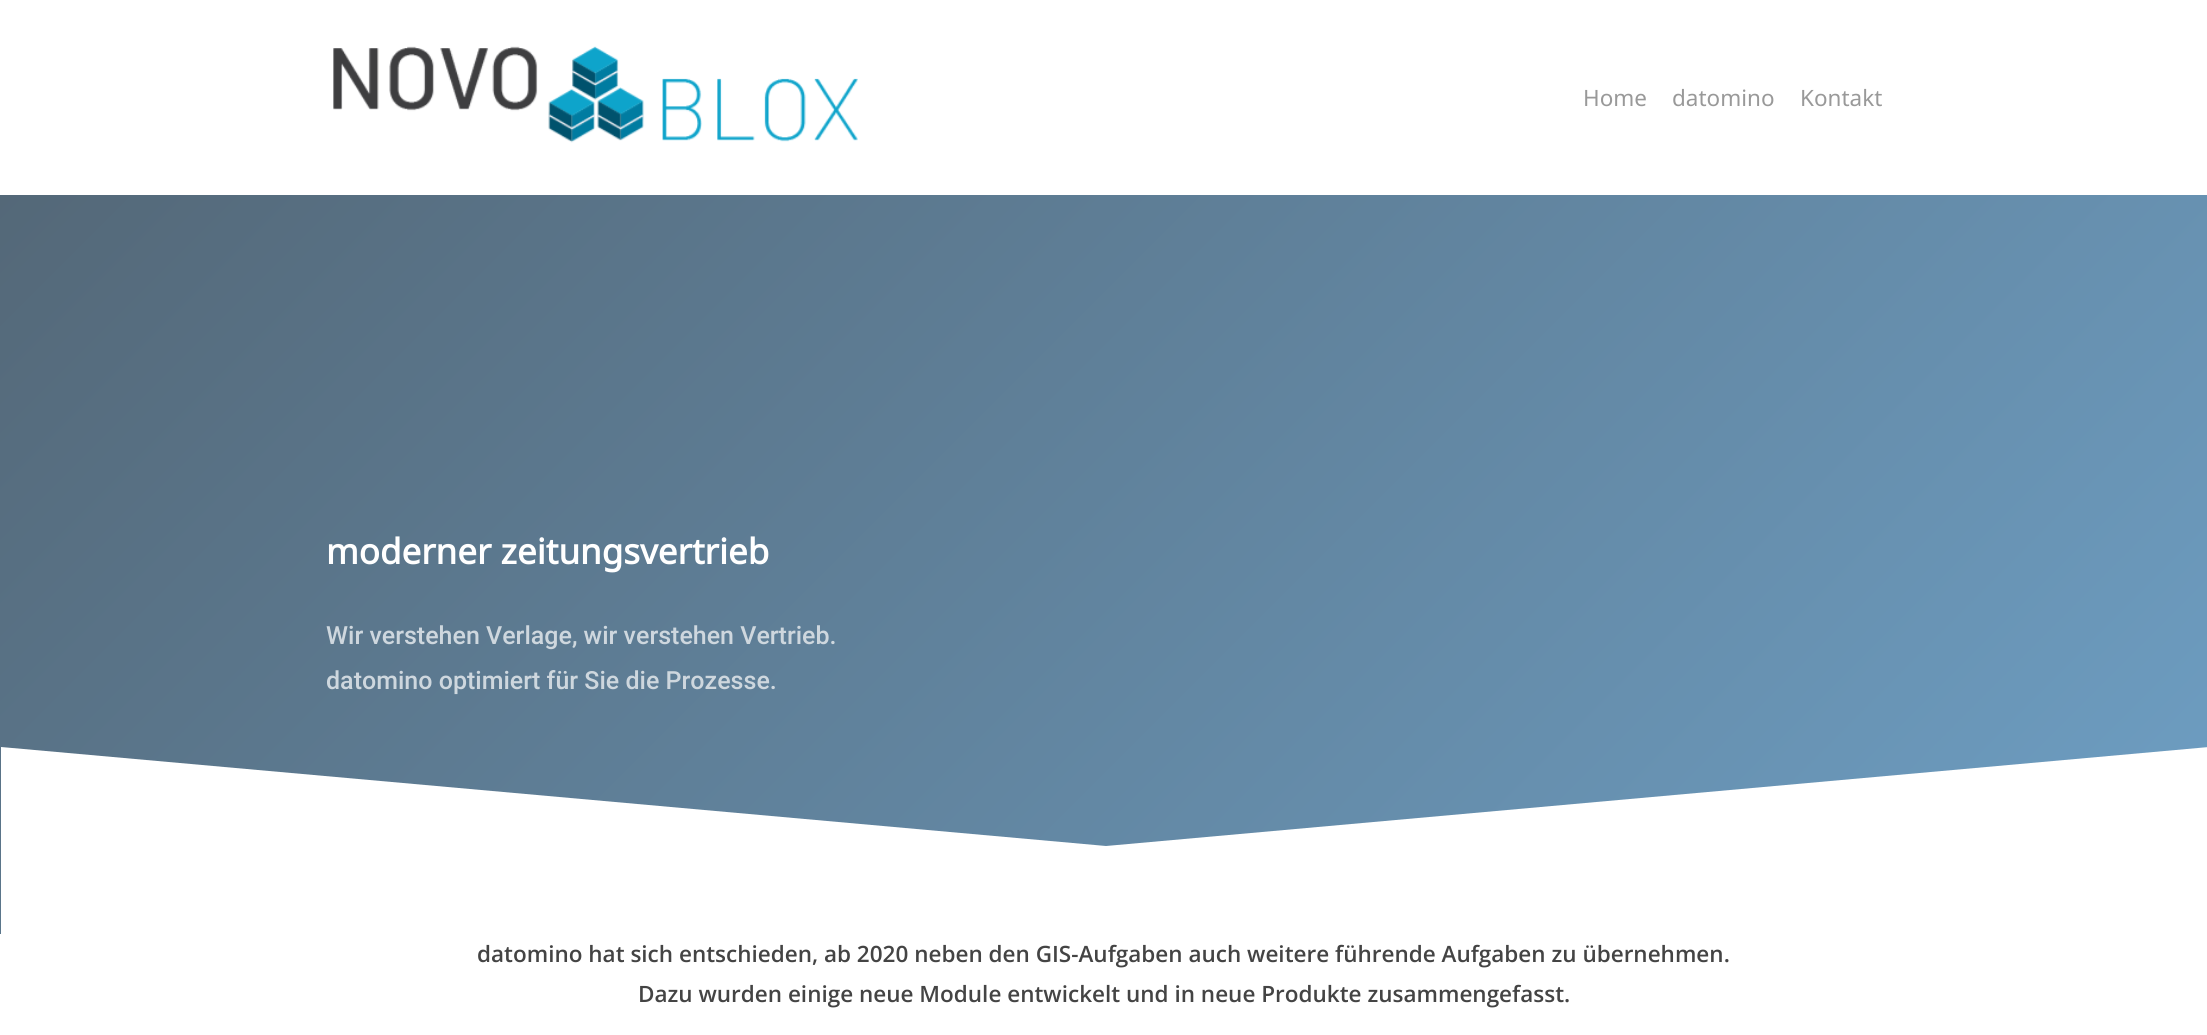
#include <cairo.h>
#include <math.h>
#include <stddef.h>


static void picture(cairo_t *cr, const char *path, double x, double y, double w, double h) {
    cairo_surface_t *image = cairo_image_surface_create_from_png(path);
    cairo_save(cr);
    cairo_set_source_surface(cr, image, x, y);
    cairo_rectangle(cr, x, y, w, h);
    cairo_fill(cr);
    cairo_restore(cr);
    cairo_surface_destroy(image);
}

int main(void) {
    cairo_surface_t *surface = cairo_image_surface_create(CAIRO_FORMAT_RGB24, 2207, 1035);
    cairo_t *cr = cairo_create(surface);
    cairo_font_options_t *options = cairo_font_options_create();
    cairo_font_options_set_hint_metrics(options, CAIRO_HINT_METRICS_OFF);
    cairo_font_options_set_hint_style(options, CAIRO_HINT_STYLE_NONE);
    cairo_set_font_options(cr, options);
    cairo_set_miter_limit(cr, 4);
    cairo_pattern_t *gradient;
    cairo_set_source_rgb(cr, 1, 1, 1);
    cairo_paint(cr);
    picture(cr, "img1.png", 333, 46, 525, 97);
    cairo_select_font_face(cr, "Noto Sans", CAIRO_FONT_SLANT_NORMAL, CAIRO_FONT_WEIGHT_NORMAL);
    cairo_set_font_size(cr, 22.5);
    cairo_set_source_rgb(cr, 0.6, 0.6, 0.6);
    cairo_move_to(cr, 1583, 106);
    cairo_show_text(cr, "Home");
    cairo_move_to(cr, 1672, 106);
    cairo_show_text(cr, "datomino");
    cairo_move_to(cr, 1800, 106);
    cairo_show_text(cr, "Kontakt");
    gradient = cairo_pattern_create_linear(367, -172, 1840, 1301);
    cairo_pattern_add_color_stop_rgba(gradient, 0, 0.329, 0.408, 0.471, 1);
    cairo_pattern_add_color_stop_rgba(gradient, 1, 0.431, 0.624, 0.769, 1);
    cairo_set_source(cr, gradient);
    cairo_pattern_destroy(gradient);
    cairo_rectangle(cr, 0, 195, 2207, 739);
    cairo_fill(cr);
    cairo_select_font_face(cr, "Noto Sans", CAIRO_FONT_SLANT_NORMAL, CAIRO_FONT_WEIGHT_BOLD);
    cairo_set_font_size(cr, 35);
    cairo_set_source_rgb(cr, 1, 1, 1);
    cairo_move_to(cr, 326, 564);
    cairo_show_text(cr, "moderner zeitungsvertrieb");
    cairo_select_font_face(cr, "Roboto Medium", CAIRO_FONT_SLANT_NORMAL, CAIRO_FONT_WEIGHT_NORMAL);
    cairo_set_font_size(cr, 25);
    cairo_set_source_rgb(cr, 0.808, 0.843, 0.871);
    cairo_move_to(cr, 326, 644);
    cairo_show_text(cr, "Wir verstehen Verlage, wir verstehen Vertrieb.");
    cairo_move_to(cr, 326, 689);
    cairo_show_text(cr, "datomino optimiert für Sie die Prozesse.");
    cairo_set_source_rgb(cr, 1, 1, 1);
    cairo_new_path(cr);
    cairo_move_to(cr, 1106, 846);
    cairo_line_to(cr, 1, 747);
    cairo_line_to(cr, 1, 934);
    cairo_line_to(cr, 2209, 934);
    cairo_line_to(cr, 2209, 747);
    cairo_close_path(cr);
    cairo_fill(cr);
    cairo_select_font_face(cr, "Open Sans SemiBold", CAIRO_FONT_SLANT_NORMAL, CAIRO_FONT_WEIGHT_NORMAL);
    cairo_set_font_size(cr, 22.5);
    cairo_set_source_rgb(cr, 0.267, 0.267, 0.267);
    cairo_move_to(cr, 477, 962);
    cairo_show_text(cr, "datomino hat sich entschieden, ab 2020 neben den GIS-Aufgaben auch weitere führende Aufgaben zu übernehmen.");
    cairo_move_to(cr, 638, 1002);
    cairo_show_text(cr, "Dazu wurden einige neue Module entwickelt und in neue Produkte zusammengefasst.");
    cairo_surface_write_to_png(surface, "page.png");
    cairo_font_options_destroy(options);
    cairo_destroy(cr);
    cairo_surface_destroy(surface);
    return 0;
}
